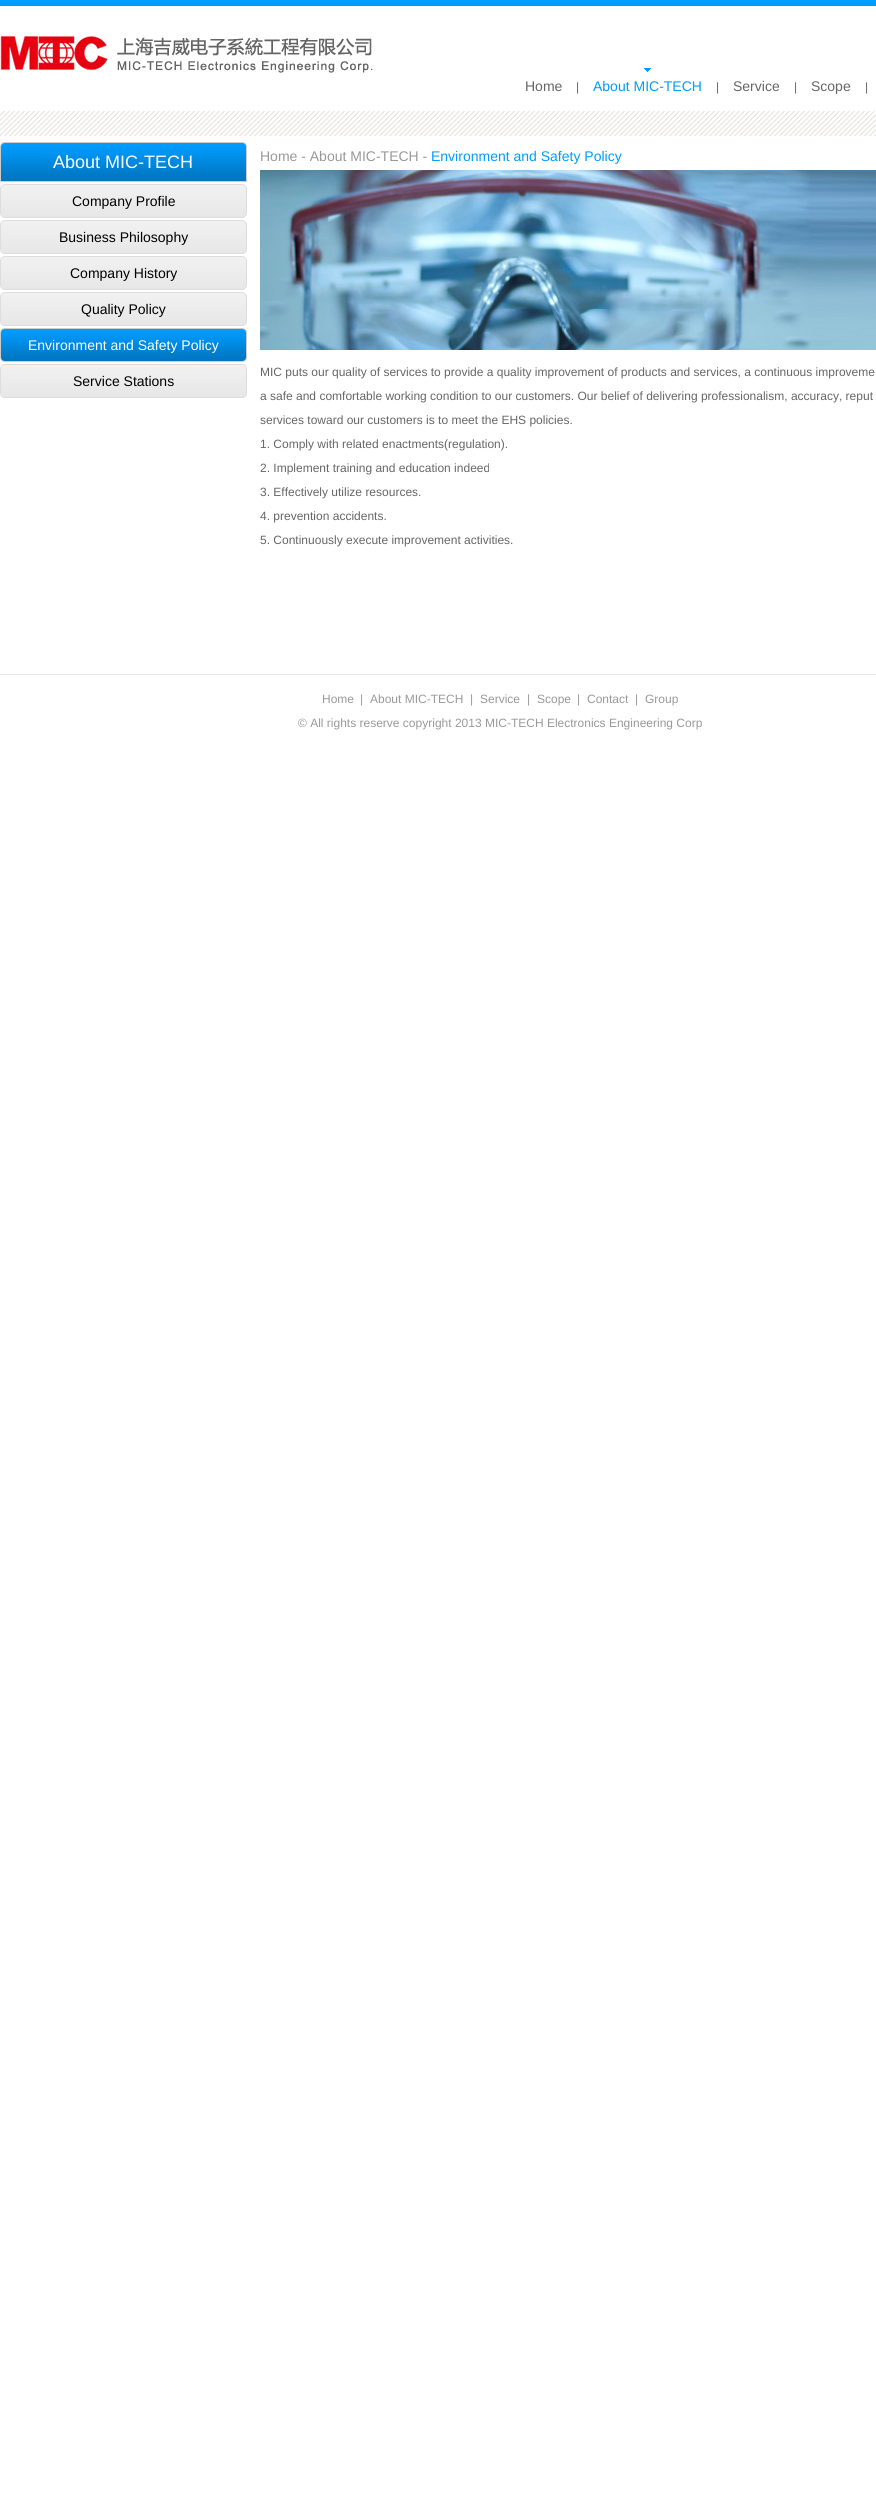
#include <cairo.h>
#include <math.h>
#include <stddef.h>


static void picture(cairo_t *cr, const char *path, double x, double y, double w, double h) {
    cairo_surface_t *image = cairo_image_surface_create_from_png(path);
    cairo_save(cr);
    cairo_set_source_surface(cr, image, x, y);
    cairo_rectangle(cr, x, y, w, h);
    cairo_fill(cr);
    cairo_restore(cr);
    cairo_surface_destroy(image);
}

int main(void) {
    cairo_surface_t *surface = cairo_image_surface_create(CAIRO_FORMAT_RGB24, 876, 2518);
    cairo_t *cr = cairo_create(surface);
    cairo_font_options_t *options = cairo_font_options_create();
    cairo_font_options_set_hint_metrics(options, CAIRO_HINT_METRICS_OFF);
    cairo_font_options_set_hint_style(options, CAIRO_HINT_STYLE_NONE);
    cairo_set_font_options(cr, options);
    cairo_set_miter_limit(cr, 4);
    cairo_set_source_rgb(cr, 1, 1, 1);
    cairo_paint(cr);
    cairo_set_source_rgb(cr, 0, 0.612, 1);
    cairo_rectangle(cr, 0, 0, 876, 6);
    cairo_fill(cr);
    picture(cr, "img1.png", 0, 36, 373, 37);
    cairo_select_font_face(cr, "Liberation Sans", CAIRO_FONT_SLANT_NORMAL, CAIRO_FONT_WEIGHT_NORMAL);
    cairo_set_font_size(cr, 14);
    cairo_set_source_rgb(cr, 0.4, 0.4, 0.4);
    cairo_move_to(cr, 525, 91);
    cairo_show_text(cr, "Home");
    cairo_set_font_size(cr, 12);
    cairo_move_to(cr, 576, 91);
    cairo_show_text(cr, "|");
    picture(cr, "img2.png", 644, 68, 7, 4);
    cairo_set_font_size(cr, 14);
    cairo_set_source_rgb(cr, 0, 0.612, 1);
    cairo_move_to(cr, 593, 91);
    cairo_show_text(cr, "About MIC-TECH");
    cairo_set_font_size(cr, 12);
    cairo_set_source_rgb(cr, 0.4, 0.4, 0.4);
    cairo_move_to(cr, 716, 91);
    cairo_show_text(cr, "|");
    cairo_set_font_size(cr, 14);
    cairo_move_to(cr, 733, 91);
    cairo_show_text(cr, "Service");
    cairo_set_font_size(cr, 12);
    cairo_move_to(cr, 794, 91);
    cairo_show_text(cr, "|");
    cairo_set_font_size(cr, 14);
    cairo_move_to(cr, 811, 91);
    cairo_show_text(cr, "Scope");
    cairo_set_font_size(cr, 12);
    cairo_move_to(cr, 865, 91);
    cairo_show_text(cr, "|");
    picture(cr, "img3.png", 0, 111, 876, 25);
    picture(cr, "img4.png", 0, 142, 247, 40);
    cairo_set_font_size(cr, 18);
    cairo_set_source_rgb(cr, 1, 1, 1);
    cairo_move_to(cr, 53, 168);
    cairo_show_text(cr, "About MIC-TECH");
    picture(cr, "img5.png", 0, 184, 247, 34);
    cairo_set_font_size(cr, 14);
    cairo_set_source_rgb(cr, 0, 0, 0);
    cairo_move_to(cr, 72, 206);
    cairo_show_text(cr, "Company Profile");
    picture(cr, "img5.png", 0, 220, 247, 34);
    cairo_move_to(cr, 59, 242);
    cairo_show_text(cr, "Business Philosophy");
    picture(cr, "img5.png", 0, 256, 247, 34);
    cairo_move_to(cr, 70, 278);
    cairo_show_text(cr, "Company History");
    picture(cr, "img5.png", 0, 292, 247, 34);
    cairo_move_to(cr, 81, 314);
    cairo_show_text(cr, "Quality Policy");
    picture(cr, "img6.png", 0, 328, 247, 34);
    cairo_set_source_rgb(cr, 1, 1, 1);
    cairo_move_to(cr, 28, 350);
    cairo_show_text(cr, "Environment and Safety Policy");
    picture(cr, "img5.png", 0, 364, 247, 34);
    cairo_set_source_rgb(cr, 0, 0, 0);
    cairo_move_to(cr, 73, 386);
    cairo_show_text(cr, "Service Stations");
    cairo_set_source_rgb(cr, 0.6, 0.6, 0.6);
    cairo_move_to(cr, 260, 161);
    cairo_show_text(cr, "Home - About MIC-TECH -");
    cairo_set_source_rgb(cr, 0, 0.612, 1);
    cairo_move_to(cr, 431, 161);
    cairo_show_text(cr, "Environment and Safety Policy");
    picture(cr, "img7.png", 260, 170, 616, 180);
    cairo_set_font_size(cr, 12);
    cairo_set_source_rgb(cr, 0.4, 0.4, 0.4);
    cairo_move_to(cr, 260, 376);
    cairo_show_text(cr, "MIC puts our quality of services to provide a quality improvement of products and services, a continuous improveme");
    cairo_move_to(cr, 260, 400);
    cairo_show_text(cr, "a safe and comfortable working condition to our customers. Our belief of delivering professionalism, accuracy, reput");
    cairo_move_to(cr, 260, 424);
    cairo_show_text(cr, "services toward our customers is to meet the EHS policies.");
    cairo_move_to(cr, 260, 448);
    cairo_show_text(cr, "1. Comply with related enactments(regulation).");
    cairo_move_to(cr, 260, 472);
    cairo_show_text(cr, "2. Implement training and education indeed");
    cairo_move_to(cr, 260, 496);
    cairo_show_text(cr, "3. Effectively utilize resources.");
    cairo_move_to(cr, 260, 520);
    cairo_show_text(cr, "4. prevention accidents.");
    cairo_move_to(cr, 260, 544);
    cairo_show_text(cr, "5. Continuously execute improvement activities.");
    cairo_set_source_rgb(cr, 0.906, 0.906, 0.906);
    cairo_rectangle(cr, 0, 674, 876, 1);
    cairo_fill(cr);
    cairo_set_source_rgb(cr, 0.6, 0.6, 0.6);
    cairo_move_to(cr, 322, 703);
    cairo_show_text(cr, "Home");
    cairo_move_to(cr, 360, 703);
    cairo_show_text(cr, "|");
    cairo_move_to(cr, 370, 703);
    cairo_show_text(cr, "About MIC-TECH");
    cairo_move_to(cr, 470, 703);
    cairo_show_text(cr, "|");
    cairo_move_to(cr, 480, 703);
    cairo_show_text(cr, "Service");
    cairo_move_to(cr, 527, 703);
    cairo_show_text(cr, "|");
    cairo_move_to(cr, 537, 703);
    cairo_show_text(cr, "Scope");
    cairo_move_to(cr, 577, 703);
    cairo_show_text(cr, "|");
    cairo_move_to(cr, 587, 703);
    cairo_show_text(cr, "Contact");
    cairo_move_to(cr, 635, 703);
    cairo_show_text(cr, "|");
    cairo_move_to(cr, 645, 703);
    cairo_show_text(cr, "Group");
    cairo_move_to(cr, 298, 727);
    cairo_show_text(cr, "© All rights reserve copyright 2013 MIC-TECH Electronics Engineering Corp");
    cairo_surface_write_to_png(surface, "page.png");
    cairo_font_options_destroy(options);
    cairo_destroy(cr);
    cairo_surface_destroy(surface);
    return 0;
}
